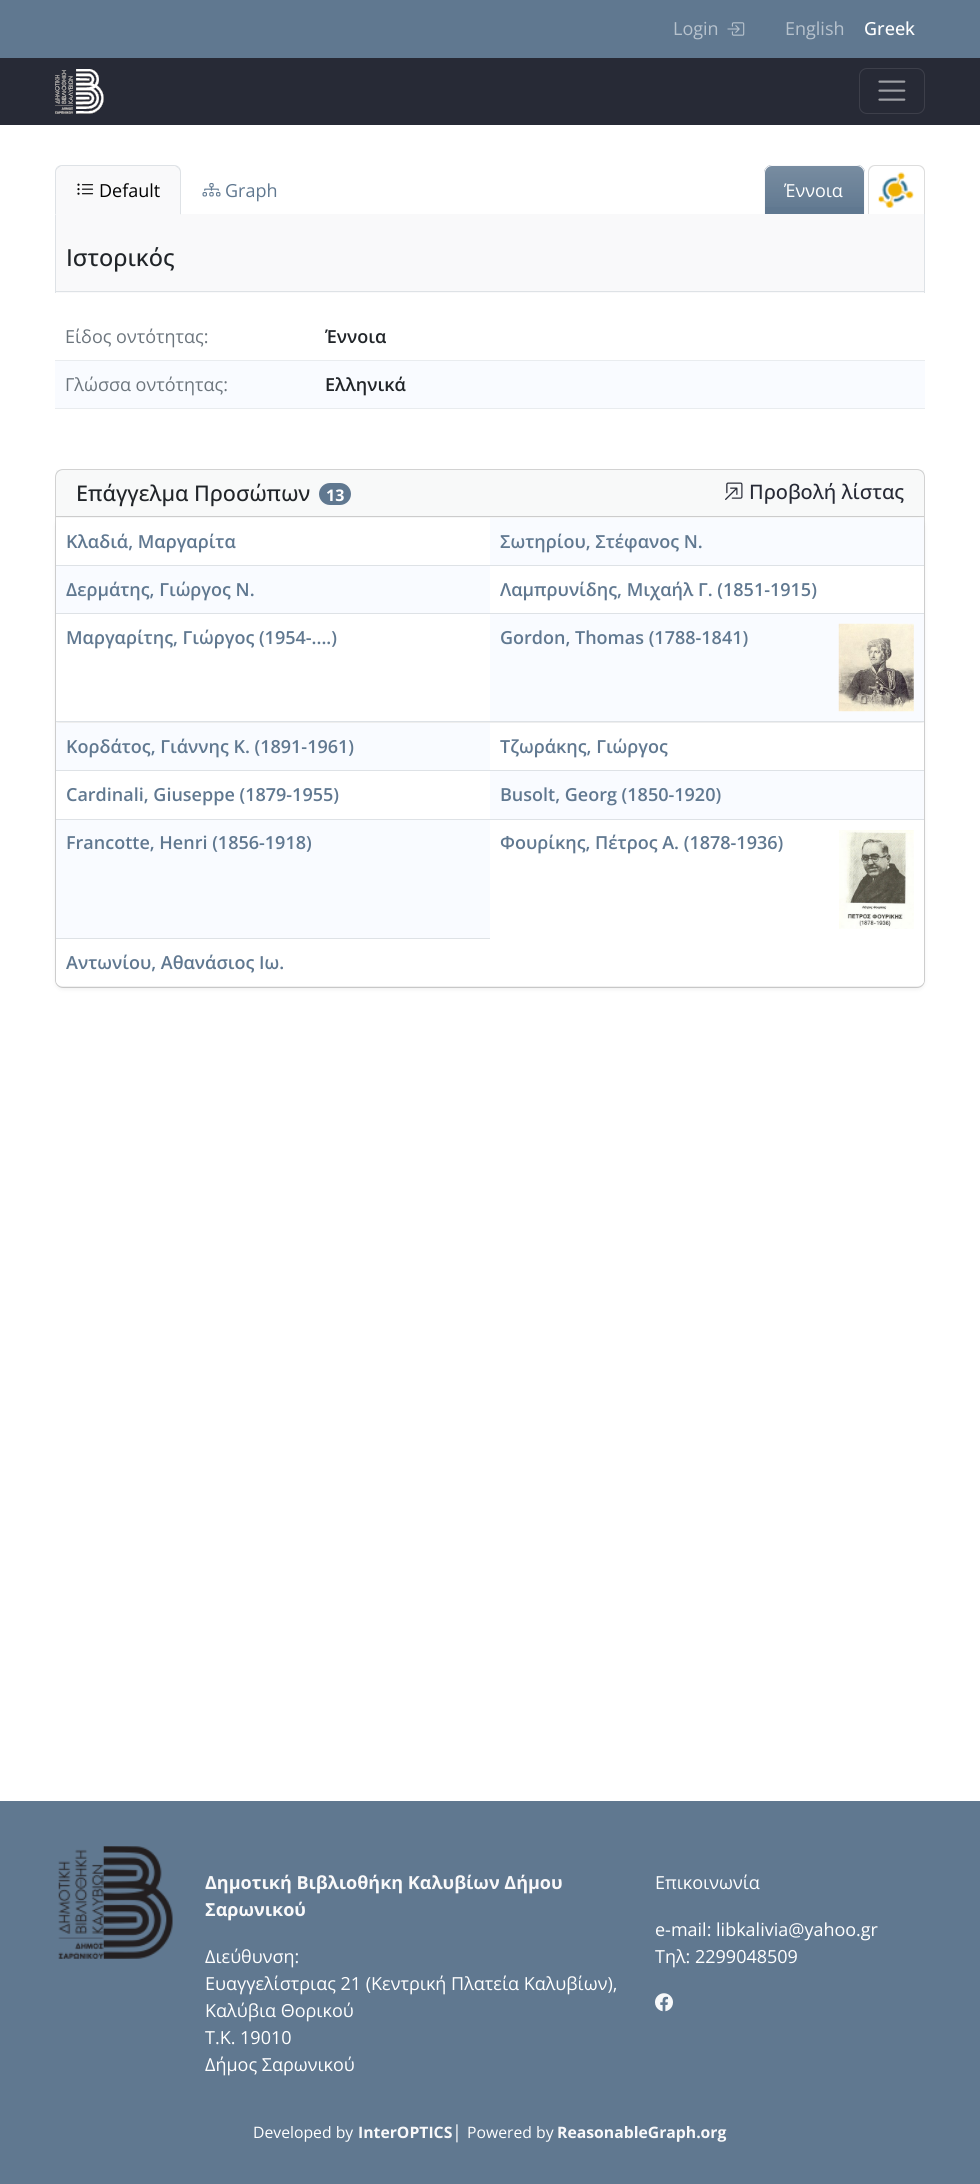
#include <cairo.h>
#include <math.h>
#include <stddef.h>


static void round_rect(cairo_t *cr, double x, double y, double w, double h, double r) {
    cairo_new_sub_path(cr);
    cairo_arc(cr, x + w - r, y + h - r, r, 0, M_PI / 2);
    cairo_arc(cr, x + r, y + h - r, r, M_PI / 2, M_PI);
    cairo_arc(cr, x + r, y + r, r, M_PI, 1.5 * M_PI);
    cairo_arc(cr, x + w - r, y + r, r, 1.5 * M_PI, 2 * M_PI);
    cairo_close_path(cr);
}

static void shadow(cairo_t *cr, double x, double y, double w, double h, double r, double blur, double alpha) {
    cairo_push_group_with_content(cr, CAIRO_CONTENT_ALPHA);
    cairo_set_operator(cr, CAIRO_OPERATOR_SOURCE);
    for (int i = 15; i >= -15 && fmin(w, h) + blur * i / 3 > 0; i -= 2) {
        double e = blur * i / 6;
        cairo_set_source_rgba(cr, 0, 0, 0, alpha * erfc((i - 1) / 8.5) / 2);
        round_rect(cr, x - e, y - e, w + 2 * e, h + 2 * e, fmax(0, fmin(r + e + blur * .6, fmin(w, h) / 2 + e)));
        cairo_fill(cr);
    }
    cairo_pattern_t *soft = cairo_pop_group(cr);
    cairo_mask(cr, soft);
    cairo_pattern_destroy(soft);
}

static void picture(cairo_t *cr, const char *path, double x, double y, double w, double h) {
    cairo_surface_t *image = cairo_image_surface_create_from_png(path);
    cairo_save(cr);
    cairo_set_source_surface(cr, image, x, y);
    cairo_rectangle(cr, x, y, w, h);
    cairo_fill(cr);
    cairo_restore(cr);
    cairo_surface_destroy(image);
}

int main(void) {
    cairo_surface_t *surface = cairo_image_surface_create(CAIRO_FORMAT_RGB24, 980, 2184);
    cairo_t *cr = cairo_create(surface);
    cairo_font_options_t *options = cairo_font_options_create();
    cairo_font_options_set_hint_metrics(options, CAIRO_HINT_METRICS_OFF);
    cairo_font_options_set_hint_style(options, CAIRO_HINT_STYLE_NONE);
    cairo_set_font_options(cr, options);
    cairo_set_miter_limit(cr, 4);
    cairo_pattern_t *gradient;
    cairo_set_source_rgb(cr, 1, 1, 1);
    cairo_paint(cr);
    cairo_set_source_rgb(cr, 0.376, 0.471, 0.565);
    cairo_rectangle(cr, 0, 0, 980, 58);
    cairo_fill(cr);
    cairo_select_font_face(cr, "Open Sans", CAIRO_FONT_SLANT_NORMAL, CAIRO_FONT_WEIGHT_NORMAL);
    cairo_set_font_size(cr, 18);
    cairo_set_source_rgb(cr, 0.718, 0.761, 0.804);
    cairo_move_to(cr, 673, 35);
    cairo_show_text(cr, "Login");
    picture(cr, "img1.png", 727, 22, 18, 14);
    cairo_move_to(cr, 785, 35);
    cairo_show_text(cr, "English");
    cairo_select_font_face(cr, "Open Sans Medium", CAIRO_FONT_SLANT_NORMAL, CAIRO_FONT_WEIGHT_NORMAL);
    cairo_set_source_rgb(cr, 1, 1, 1);
    cairo_move_to(cr, 864, 35);
    cairo_show_text(cr, "Greek");
    cairo_set_source_rgb(cr, 0.153, 0.165, 0.212);
    cairo_rectangle(cr, 0, 58, 980, 67);
    cairo_fill(cr);
    picture(cr, "img2.png", 55, 69, 49, 45);
    round_rect(cr, 859.5, 68.5, 65, 45, 7.5);
    cairo_set_source_rgb(cr, 0.239, 0.247, 0.29);
    cairo_set_line_width(cr, 1);
    cairo_stroke(cr);
    picture(cr, "img3.png", 878, 80, 28, 21);
    cairo_set_source_rgb(cr, 0.973, 0.976, 0.98);
    cairo_rectangle(cr, 56, 214, 868, 79);
    cairo_fill(cr);
    cairo_set_source_rgb(cr, 0.871, 0.886, 0.902);
    cairo_rectangle(cr, 924, 214, 1, 79);
    cairo_fill(cr);
    cairo_rectangle(cr, 55, 291, 870, 1);
    cairo_fill(cr);
    cairo_rectangle(cr, 55, 214, 1, 79);
    cairo_fill(cr);
    cairo_set_source_rgb(cr, 0.973, 0.976, 0.98);
    cairo_new_path(cr);
    cairo_move_to(cr, 63, 165);
    cairo_line_to(cr, 173, 165);
    cairo_curve_to(cr, 177.5, 165, 181, 168.5, 181, 173);
    cairo_line_to(cr, 181, 215);
    cairo_line_to(cr, 55, 215);
    cairo_line_to(cr, 55, 173);
    cairo_curve_to(cr, 55, 168.5, 58.5, 165, 63, 165);
    cairo_close_path(cr);
    cairo_fill(cr);
    cairo_set_source_rgb(cr, 0.871, 0.886, 0.902);
    cairo_new_path(cr);
    cairo_move_to(cr, 62, 165);
    cairo_curve_to(cr, 60, 165, 58, 166, 57, 167);
    cairo_line_to(cr, 58, 168);
    cairo_line_to(cr, 61, 166);
    cairo_line_to(cr, 175, 166);
    cairo_line_to(cr, 178, 168);
    cairo_line_to(cr, 179, 167);
    cairo_curve_to(cr, 178, 166, 176, 165, 174, 165);
    cairo_close_path(cr);
    cairo_fill(cr);
    cairo_new_path(cr);
    cairo_move_to(cr, 179, 167);
    cairo_curve_to(cr, 180, 168, 181, 170, 181, 172);
    cairo_line_to(cr, 181, 215);
    cairo_line_to(cr, 180, 214);
    cairo_line_to(cr, 180, 172);
    cairo_curve_to(cr, 180, 171, 179, 169, 178, 168);
    cairo_close_path(cr);
    cairo_fill(cr);
    cairo_set_source_rgb(cr, 0.973, 0.976, 0.98);
    cairo_new_path(cr);
    cairo_move_to(cr, 181, 215);
    cairo_line_to(cr, 180, 214);
    cairo_line_to(cr, 56, 214);
    cairo_line_to(cr, 55, 215);
    cairo_close_path(cr);
    cairo_fill(cr);
    cairo_set_source_rgb(cr, 0.871, 0.886, 0.902);
    cairo_new_path(cr);
    cairo_move_to(cr, 55, 215);
    cairo_line_to(cr, 56, 214);
    cairo_line_to(cr, 56, 172);
    cairo_curve_to(cr, 56, 170, 57, 169, 58, 168);
    cairo_line_to(cr, 57, 167);
    cairo_curve_to(cr, 56, 168, 55, 170, 55, 172);
    cairo_close_path(cr);
    cairo_fill(cr);
    picture(cr, "img4.png", 77, 183, 17, 12);
    cairo_select_font_face(cr, "Open Sans", CAIRO_FONT_SLANT_NORMAL, CAIRO_FONT_WEIGHT_NORMAL);
    cairo_set_source_rgb(cr, 0, 0, 0);
    cairo_move_to(cr, 99, 197);
    cairo_show_text(cr, "Default");
    picture(cr, "img5.png", 202, 183, 19, 14);
    cairo_set_source_rgb(cr, 0.376, 0.471, 0.565);
    cairo_move_to(cr, 225, 197);
    cairo_show_text(cr, "Graph");
    cairo_new_path(cr);
    cairo_move_to(cr, 772, 165);
    cairo_line_to(cr, 857, 165);
    cairo_curve_to(cr, 861.5, 165, 865, 168.5, 865, 173);
    cairo_line_to(cr, 865, 215);
    cairo_line_to(cr, 764, 215);
    cairo_line_to(cr, 764, 173);
    cairo_curve_to(cr, 764, 168.5, 767.5, 165, 772, 165);
    cairo_close_path(cr);
    cairo_fill(cr);
    cairo_save(cr);
    cairo_new_path(cr);
    cairo_move_to(cr, 772, 165);
    cairo_line_to(cr, 857, 165);
    cairo_curve_to(cr, 861.5, 165, 865, 168.5, 865, 173);
    cairo_line_to(cr, 865, 215);
    cairo_line_to(cr, 764, 215);
    cairo_line_to(cr, 764, 173);
    cairo_curve_to(cr, 764, 168.5, 767.5, 165, 772, 165);
    cairo_close_path(cr);
    cairo_clip(cr);
    gradient = cairo_pattern_create_linear(814, 166, 814, 214);
    cairo_pattern_add_color_stop_rgba(gradient, 0, 1, 1, 1, 0.15);
    cairo_pattern_add_color_stop_rgba(gradient, 1, 1, 1, 1, 0);
    cairo_set_source(cr, gradient);
    cairo_pattern_destroy(gradient);
    cairo_rectangle(cr, 764, 166, 101, 41);
    cairo_fill(cr);
    cairo_restore(cr);
    cairo_new_path(cr);
    cairo_move_to(cr, 772, 165.5);
    cairo_line_to(cr, 857, 165.5);
    cairo_curve_to(cr, 861, 165.5, 864.5, 169, 864.5, 173);
    cairo_line_to(cr, 864.5, 214.5);
    cairo_line_to(cr, 764.5, 214.5);
    cairo_line_to(cr, 764.5, 173);
    cairo_curve_to(cr, 764.5, 169, 768, 165.5, 772, 165.5);
    cairo_close_path(cr);
    cairo_set_source_rgb(cr, 0.973, 0.976, 0.98);
    cairo_stroke(cr);
    cairo_set_source_rgb(cr, 1, 1, 1);
    cairo_move_to(cr, 784, 197);
    cairo_show_text(cr, "Έννοια");
    cairo_set_source_rgb(cr, 0.867, 0.867, 0.867);
    cairo_set_fill_rule(cr, CAIRO_FILL_RULE_EVEN_ODD);
    cairo_new_path(cr);
    cairo_move_to(cr, 875, 165);
    cairo_line_to(cr, 918, 165);
    cairo_curve_to(cr, 922, 165, 925, 168, 925, 172);
    cairo_line_to(cr, 925, 214);
    cairo_line_to(cr, 868, 214);
    cairo_line_to(cr, 868, 172);
    cairo_curve_to(cr, 868, 168, 871, 165, 875, 165);
    cairo_close_path(cr);
    cairo_move_to(cr, 875, 166);
    cairo_line_to(cr, 918, 166);
    cairo_curve_to(cr, 921, 166, 924, 169, 924, 172);
    cairo_line_to(cr, 924, 214);
    cairo_line_to(cr, 869, 214);
    cairo_line_to(cr, 869, 172);
    cairo_curve_to(cr, 869, 169, 872, 166, 875, 166);
    cairo_close_path(cr);
    cairo_fill(cr);
    picture(cr, "img6.png", 878, 172, 36, 36);
    cairo_select_font_face(cr, "Open Sans Medium", CAIRO_FONT_SLANT_NORMAL, CAIRO_FONT_WEIGHT_NORMAL);
    cairo_set_font_size(cr, 23.5);
    cairo_set_source_rgb(cr, 0.129, 0.145, 0.161);
    cairo_move_to(cr, 66, 266);
    cairo_show_text(cr, "Ιστορικός");
    cairo_set_source_rgb(cr, 0.914, 0.925, 0.937);
    cairo_rectangle(cr, 55, 360, 870, 1);
    cairo_fill(cr);
    cairo_select_font_face(cr, "Open Sans", CAIRO_FONT_SLANT_NORMAL, CAIRO_FONT_WEIGHT_NORMAL);
    cairo_set_font_size(cr, 18);
    cairo_set_source_rgb(cr, 0.424, 0.459, 0.49);
    cairo_move_to(cr, 65, 343);
    cairo_show_text(cr, "Είδος οντότητας:");
    cairo_select_font_face(cr, "Open Sans SemiBold", CAIRO_FONT_SLANT_NORMAL, CAIRO_FONT_WEIGHT_NORMAL);
    cairo_set_source_rgb(cr, 0.129, 0.145, 0.161);
    cairo_move_to(cr, 325, 343);
    cairo_show_text(cr, "Έννοια");
    cairo_set_source_rgb(cr, 0.973, 0.984, 1);
    cairo_rectangle(cr, 55, 361, 870, 47);
    cairo_fill(cr);
    cairo_set_source_rgb(cr, 0.914, 0.925, 0.937);
    cairo_rectangle(cr, 55, 408, 870, 1);
    cairo_fill(cr);
    cairo_select_font_face(cr, "Open Sans", CAIRO_FONT_SLANT_NORMAL, CAIRO_FONT_WEIGHT_NORMAL);
    cairo_set_source_rgb(cr, 0.424, 0.459, 0.49);
    cairo_move_to(cr, 65, 391);
    cairo_show_text(cr, "Γλώσσα οντότητας:");
    cairo_select_font_face(cr, "Open Sans SemiBold", CAIRO_FONT_SLANT_NORMAL, CAIRO_FONT_WEIGHT_NORMAL);
    cairo_set_source_rgb(cr, 0.129, 0.145, 0.161);
    cairo_move_to(cr, 325, 391);
    cairo_show_text(cr, "Ελληνικά");
    round_rect(cr, 55.5, 469.5, 869, 518, 7.5);
    cairo_set_source_rgb(cr, 0.824, 0.824, 0.824);
    cairo_stroke(cr);
    cairo_set_source_rgba(cr, 0.129, 0.145, 0.161, 0.03);
    cairo_rectangle(cr, 56, 470, 868, 48);
    cairo_fill(cr);
    cairo_set_source_rgb(cr, 0.804, 0.804, 0.804);
    cairo_rectangle(cr, 56, 516, 868, 1);
    cairo_fill(cr);
    cairo_select_font_face(cr, "Open Sans Medium", CAIRO_FONT_SLANT_NORMAL, CAIRO_FONT_WEIGHT_NORMAL);
    cairo_set_font_size(cr, 21.6);
    cairo_set_source_rgb(cr, 0.129, 0.145, 0.161);
    cairo_move_to(cr, 76, 501);
    cairo_show_text(cr, "Επάγγελμα Προσώπων");
    cairo_set_source_rgb(cr, 0.376, 0.471, 0.565);
    round_rect(cr, 319, 483, 32, 22, 11);
    cairo_fill(cr);
    cairo_select_font_face(cr, "Open Sans", CAIRO_FONT_SLANT_NORMAL, CAIRO_FONT_WEIGHT_BOLD);
    cairo_set_font_size(cr, 16);
    cairo_set_source_rgb(cr, 1, 1, 1);
    cairo_move_to(cr, 326, 501);
    cairo_show_text(cr, "13");
    picture(cr, "img7.png", 725, 482, 18, 18);
    cairo_select_font_face(cr, "Open Sans Medium", CAIRO_FONT_SLANT_NORMAL, CAIRO_FONT_WEIGHT_NORMAL);
    cairo_set_font_size(cr, 20);
    cairo_set_source_rgb(cr, 0.153, 0.165, 0.212);
    cairo_move_to(cr, 749, 499);
    cairo_show_text(cr, "Προβολή λίστας");
    cairo_set_source_rgb(cr, 0, 0, 0);
    shadow(cr, 56, 520, 868, 469, 6, 2.5, 0.07);
    cairo_set_source_rgb(cr, 1, 1, 1);
    cairo_rectangle(cr, 56, 518, 434, 47);
    cairo_fill(cr);
    cairo_set_source_rgb(cr, 0.871, 0.886, 0.902);
    cairo_rectangle(cr, 56, 565, 868, 1);
    cairo_fill(cr);
    cairo_select_font_face(cr, "Open Sans SemiBold", CAIRO_FONT_SLANT_NORMAL, CAIRO_FONT_WEIGHT_NORMAL);
    cairo_set_font_size(cr, 18);
    cairo_set_source_rgb(cr, 0.376, 0.471, 0.565);
    cairo_move_to(cr, 66, 548);
    cairo_show_text(cr, "Κλαδιά, Μαργαρίτα");
    cairo_set_source_rgb(cr, 0.973, 0.984, 1);
    cairo_rectangle(cr, 490, 518, 434, 47);
    cairo_fill(cr);
    cairo_set_source_rgb(cr, 0.376, 0.471, 0.565);
    cairo_move_to(cr, 500, 548);
    cairo_show_text(cr, "Σωτηρίου, Στέφανος Ν.");
    cairo_set_source_rgb(cr, 0.973, 0.984, 1);
    cairo_rectangle(cr, 56, 566, 434, 47);
    cairo_fill(cr);
    cairo_set_source_rgb(cr, 0.871, 0.886, 0.902);
    cairo_rectangle(cr, 56, 613, 868, 1);
    cairo_fill(cr);
    cairo_set_source_rgb(cr, 0.376, 0.471, 0.565);
    cairo_move_to(cr, 66, 596);
    cairo_show_text(cr, "Δερμάτης, Γιώργος Ν.");
    cairo_set_source_rgb(cr, 1, 1, 1);
    cairo_rectangle(cr, 490, 566, 434, 47);
    cairo_fill(cr);
    cairo_set_source_rgb(cr, 0.376, 0.471, 0.565);
    cairo_move_to(cr, 500, 596);
    cairo_show_text(cr, "Λαμπρυνίδης, Μιχαήλ Γ. (1851-1915)");
    cairo_set_source_rgb(cr, 1, 1, 1);
    cairo_rectangle(cr, 56, 614, 434, 107);
    cairo_fill(cr);
    cairo_set_source_rgb(cr, 0.871, 0.886, 0.902);
    cairo_rectangle(cr, 56, 721, 868, 1);
    cairo_fill(cr);
    cairo_set_source_rgb(cr, 0.376, 0.471, 0.565);
    cairo_move_to(cr, 66, 644);
    cairo_show_text(cr, "Μαργαρίτης, Γιώργος (1954-....)");
    cairo_set_source_rgb(cr, 0.973, 0.984, 1);
    cairo_rectangle(cr, 490, 614, 434, 107);
    cairo_fill(cr);
    cairo_set_source_rgb(cr, 0.376, 0.471, 0.565);
    cairo_move_to(cr, 500, 644);
    cairo_show_text(cr, "Gordon, Thomas (1788-1841)");
    picture(cr, "img8.png", 838, 623, 76, 89);
    cairo_set_source_rgb(cr, 0.973, 0.984, 1);
    cairo_rectangle(cr, 56, 723, 434, 47);
    cairo_fill(cr);
    cairo_set_source_rgb(cr, 0.871, 0.886, 0.902);
    cairo_rectangle(cr, 56, 770, 868, 1);
    cairo_fill(cr);
    cairo_set_source_rgb(cr, 0.376, 0.471, 0.565);
    cairo_move_to(cr, 66, 753);
    cairo_show_text(cr, "Κορδάτος, Γιάννης Κ. (1891-1961)");
    cairo_set_source_rgb(cr, 1, 1, 1);
    cairo_rectangle(cr, 490, 723, 434, 47);
    cairo_fill(cr);
    cairo_set_source_rgb(cr, 0.376, 0.471, 0.565);
    cairo_move_to(cr, 500, 753);
    cairo_show_text(cr, "Τζωράκης, Γιώργος");
    cairo_set_source_rgb(cr, 1, 1, 1);
    cairo_rectangle(cr, 56, 771, 434, 48);
    cairo_fill(cr);
    cairo_set_source_rgb(cr, 0.871, 0.886, 0.902);
    cairo_rectangle(cr, 56, 819, 868, 1);
    cairo_fill(cr);
    cairo_set_source_rgb(cr, 0.376, 0.471, 0.565);
    cairo_move_to(cr, 66, 801);
    cairo_show_text(cr, "Cardinali, Giuseppe (1879-1955)");
    cairo_set_source_rgb(cr, 0.973, 0.984, 1);
    cairo_rectangle(cr, 490, 771, 434, 48);
    cairo_fill(cr);
    cairo_set_source_rgb(cr, 0.376, 0.471, 0.565);
    cairo_move_to(cr, 500, 801);
    cairo_show_text(cr, "Busolt, Georg (1850-1920)");
    cairo_set_source_rgb(cr, 0.973, 0.984, 1);
    cairo_rectangle(cr, 56, 820, 434, 118);
    cairo_fill(cr);
    cairo_set_source_rgb(cr, 0.871, 0.886, 0.902);
    cairo_rectangle(cr, 56, 938, 434, 1);
    cairo_fill(cr);
    cairo_set_source_rgb(cr, 0.376, 0.471, 0.565);
    cairo_move_to(cr, 66, 849);
    cairo_show_text(cr, "Francotte, Henri (1856-1918)");
    cairo_set_source_rgb(cr, 1, 1, 1);
    cairo_rectangle(cr, 490, 820, 434, 119);
    cairo_fill(cr);
    cairo_set_source_rgb(cr, 0.376, 0.471, 0.565);
    cairo_move_to(cr, 500, 849);
    cairo_show_text(cr, "Φουρίκης, Πέτρος Α. (1878-1936)");
    picture(cr, "img9.png", 839, 830, 75, 99);
    cairo_set_source_rgb(cr, 1, 1, 1);
    cairo_new_path(cr);
    cairo_move_to(cr, 56, 939);
    cairo_line_to(cr, 924, 939);
    cairo_line_to(cr, 924, 980);
    cairo_curve_to(cr, 924, 983.5, 921.5, 986, 918, 986);
    cairo_line_to(cr, 62, 986);
    cairo_curve_to(cr, 58.5, 986, 56, 983.5, 56, 980);
    cairo_close_path(cr);
    cairo_fill(cr);
    cairo_set_source_rgb(cr, 0.376, 0.471, 0.565);
    cairo_move_to(cr, 66, 969);
    cairo_show_text(cr, "Αντωνίου, Αθανάσιος Ιω.");
    cairo_rectangle(cr, 0, 1801, 980, 383);
    cairo_fill(cr);
    picture(cr, "img10.png", 58, 1846, 115, 113);
    cairo_select_font_face(cr, "Open Sans", CAIRO_FONT_SLANT_NORMAL, CAIRO_FONT_WEIGHT_BOLD);
    cairo_set_source_rgb(cr, 0.973, 0.976, 0.98);
    cairo_move_to(cr, 205, 1889);
    cairo_show_text(cr, "Δημοτική Βιβλιοθήκη Καλυβίων Δήμου");
    cairo_move_to(cr, 205, 1916);
    cairo_show_text(cr, "Σαρωνικού");
    cairo_select_font_face(cr, "Open Sans", CAIRO_FONT_SLANT_NORMAL, CAIRO_FONT_WEIGHT_NORMAL);
    cairo_set_source_rgb(cr, 1, 1, 1);
    cairo_move_to(cr, 205, 1963);
    cairo_show_text(cr, "Διεύθυνση:");
    cairo_move_to(cr, 205, 1990);
    cairo_show_text(cr, "Ευαγγελίστριας 21 (Κεντρική Πλατεία Καλυβίων),");
    cairo_move_to(cr, 205, 2017);
    cairo_show_text(cr, "Καλύβια Θορικού");
    cairo_move_to(cr, 205, 2044);
    cairo_show_text(cr, "Τ.Κ. 19010");
    cairo_move_to(cr, 205, 2071);
    cairo_show_text(cr, "Δήμος Σαρωνικού");
    cairo_move_to(cr, 655, 1889);
    cairo_show_text(cr, "Επικοινωνία");
    cairo_move_to(cr, 655, 1936);
    cairo_show_text(cr, "e-mail: libkalivia@yahoo.gr");
    cairo_move_to(cr, 655, 1963);
    cairo_show_text(cr, "Τηλ: 2299048509");
    picture(cr, "img11.png", 655, 1993, 18, 19);
    cairo_set_font_size(cr, 15.75);
    cairo_move_to(cr, 253, 2138);
    cairo_show_text(cr, "Developed by");
    cairo_select_font_face(cr, "Open Sans", CAIRO_FONT_SLANT_NORMAL, CAIRO_FONT_WEIGHT_BOLD);
    cairo_set_source_rgb(cr, 0.973, 0.976, 0.98);
    cairo_move_to(cr, 358, 2138);
    cairo_show_text(cr, "InterOPTICS");
    cairo_select_font_face(cr, "Open Sans", CAIRO_FONT_SLANT_NORMAL, CAIRO_FONT_WEIGHT_NORMAL);
    cairo_set_font_size(cr, 18);
    cairo_set_source_rgb(cr, 1, 1, 1);
    cairo_move_to(cr, 452, 2138);
    cairo_show_text(cr, "|");
    cairo_set_font_size(cr, 15.75);
    cairo_move_to(cr, 467, 2138);
    cairo_show_text(cr, "Powered by");
    cairo_select_font_face(cr, "Open Sans", CAIRO_FONT_SLANT_NORMAL, CAIRO_FONT_WEIGHT_BOLD);
    cairo_set_source_rgb(cr, 0.973, 0.976, 0.98);
    cairo_move_to(cr, 557, 2138);
    cairo_show_text(cr, "ReasonableGraph.org");
    cairo_surface_write_to_png(surface, "page.png");
    cairo_font_options_destroy(options);
    cairo_destroy(cr);
    cairo_surface_destroy(surface);
    return 0;
}
